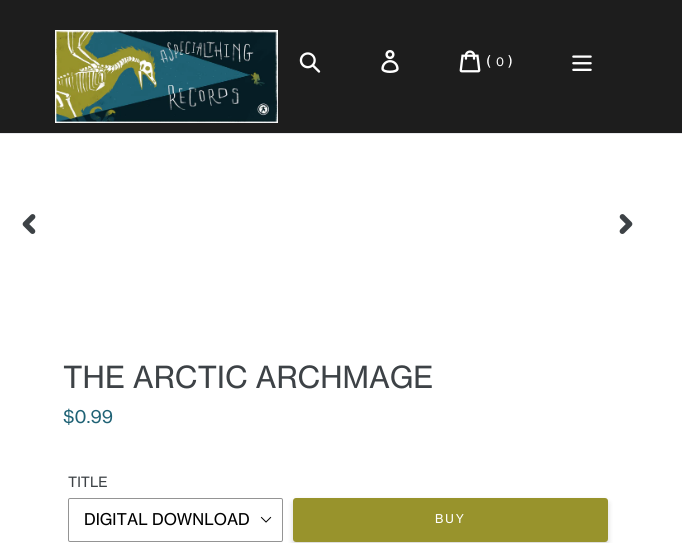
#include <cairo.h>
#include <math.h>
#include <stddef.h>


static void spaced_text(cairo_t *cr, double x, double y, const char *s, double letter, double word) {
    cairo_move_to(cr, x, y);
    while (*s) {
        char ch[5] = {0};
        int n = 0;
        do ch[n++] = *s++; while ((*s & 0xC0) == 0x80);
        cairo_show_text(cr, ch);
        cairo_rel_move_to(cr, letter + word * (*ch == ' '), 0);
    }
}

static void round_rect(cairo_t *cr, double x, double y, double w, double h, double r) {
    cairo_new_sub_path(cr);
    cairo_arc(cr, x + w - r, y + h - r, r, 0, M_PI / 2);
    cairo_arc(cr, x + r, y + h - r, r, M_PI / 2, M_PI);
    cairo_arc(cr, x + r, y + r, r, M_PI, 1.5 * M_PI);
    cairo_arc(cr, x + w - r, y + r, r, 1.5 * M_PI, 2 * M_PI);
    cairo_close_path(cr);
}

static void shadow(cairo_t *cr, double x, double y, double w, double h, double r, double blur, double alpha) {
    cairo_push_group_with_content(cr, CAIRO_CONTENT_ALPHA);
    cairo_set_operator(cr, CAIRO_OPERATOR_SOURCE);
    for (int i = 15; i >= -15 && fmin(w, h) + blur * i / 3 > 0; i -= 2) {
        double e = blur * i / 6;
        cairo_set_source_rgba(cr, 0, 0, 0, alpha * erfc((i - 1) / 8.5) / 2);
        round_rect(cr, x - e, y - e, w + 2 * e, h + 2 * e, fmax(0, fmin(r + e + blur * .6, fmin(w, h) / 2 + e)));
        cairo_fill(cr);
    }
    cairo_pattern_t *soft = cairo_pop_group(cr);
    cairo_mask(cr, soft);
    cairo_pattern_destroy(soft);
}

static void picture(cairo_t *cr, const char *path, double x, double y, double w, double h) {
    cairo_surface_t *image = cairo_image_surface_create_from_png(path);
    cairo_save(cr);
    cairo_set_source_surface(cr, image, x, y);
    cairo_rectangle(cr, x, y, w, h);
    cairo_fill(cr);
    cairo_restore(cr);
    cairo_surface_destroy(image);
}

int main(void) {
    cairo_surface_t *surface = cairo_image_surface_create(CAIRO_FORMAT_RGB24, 682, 543);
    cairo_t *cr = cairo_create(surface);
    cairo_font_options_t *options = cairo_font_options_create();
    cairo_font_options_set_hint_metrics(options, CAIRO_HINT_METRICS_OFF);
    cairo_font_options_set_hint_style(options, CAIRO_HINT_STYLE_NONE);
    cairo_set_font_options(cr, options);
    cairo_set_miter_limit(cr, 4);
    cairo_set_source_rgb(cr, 1, 1, 1);
    cairo_paint(cr);
    cairo_set_source_rgb(cr, 0.114, 0.114, 0.114);
    cairo_rectangle(cr, 0, 0, 682, 133);
    cairo_fill(cr);
    cairo_set_source_rgb(cr, 0.91, 0.914, 0.922);
    cairo_rectangle(cr, 0, 133, 682, 1);
    cairo_fill(cr);
    picture(cr, "img1.png", 55, 30, 223, 93);
    picture(cr, "img2.png", 299, 52, 22, 21);
    picture(cr, "img3.png", 381, 50, 18, 23);
    picture(cr, "img4.png", 459, 50, 22, 23);
    cairo_select_font_face(cr, "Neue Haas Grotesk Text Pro", CAIRO_FONT_SLANT_NORMAL, CAIRO_FONT_WEIGHT_NORMAL);
    cairo_set_font_size(cr, 14);
    cairo_set_source_rgb(cr, 1, 1, 1);
    cairo_move_to(cr, 486, 66);
    cairo_show_text(cr, "(");
    cairo_set_font_size(cr, 12);
    cairo_move_to(cr, 496, 66);
    cairo_show_text(cr, "0");
    cairo_set_font_size(cr, 14);
    cairo_move_to(cr, 508, 66);
    cairo_show_text(cr, ")");
    picture(cr, "img5.png", 572, 55, 20, 16);
    picture(cr, "img6.png", 22, 214, 14, 20);
    picture(cr, "img7.png", 619, 214, 14, 20);
    cairo_set_font_size(cr, 30);
    cairo_set_source_rgb(cr, 0.239, 0.259, 0.275);
    cairo_move_to(cr, 63, 388);
    cairo_show_text(cr, "THE ARCTIC ARCHMAGE");
    cairo_set_font_size(cr, 18);
    cairo_set_source_rgb(cr, 0.122, 0.384, 0.459);
    cairo_move_to(cr, 63, 423);
    cairo_show_text(cr, "$0.99");
    cairo_set_font_size(cr, 14);
    cairo_set_source_rgb(cr, 0.239, 0.259, 0.275);
    cairo_move_to(cr, 68, 487);
    cairo_show_text(cr, "TITLE");
    picture(cr, "img8.png", 260, 516, 12, 7);
    round_rect(cr, 68.5, 498.5, 214, 43, 1.5);
    cairo_set_source_rgb(cr, 0.58, 0.58, 0.58);
    cairo_set_line_width(cr, 1);
    cairo_stroke(cr);
    cairo_set_font_size(cr, 16);
    cairo_set_source_rgb(cr, 0, 0, 0);
    cairo_move_to(cr, 84, 525);
    cairo_show_text(cr, "DIGITAL DOWNLOAD");
    cairo_set_source_rgb(cr, 0, 0, 0);
    shadow(cr, 293, 501, 315, 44, 3, 3, 0.16);
    cairo_set_source_rgb(cr, 0.596, 0.576, 0.173);
    round_rect(cr, 293, 498, 315, 44, 3);
    cairo_fill(cr);
    cairo_set_font_size(cr, 12);
    cairo_set_source_rgb(cr, 1, 1, 1);
    spaced_text(cr, 435, 523, "BUY", 2, 0);
    cairo_surface_write_to_png(surface, "page.png");
    cairo_font_options_destroy(options);
    cairo_destroy(cr);
    cairo_surface_destroy(surface);
    return 0;
}
